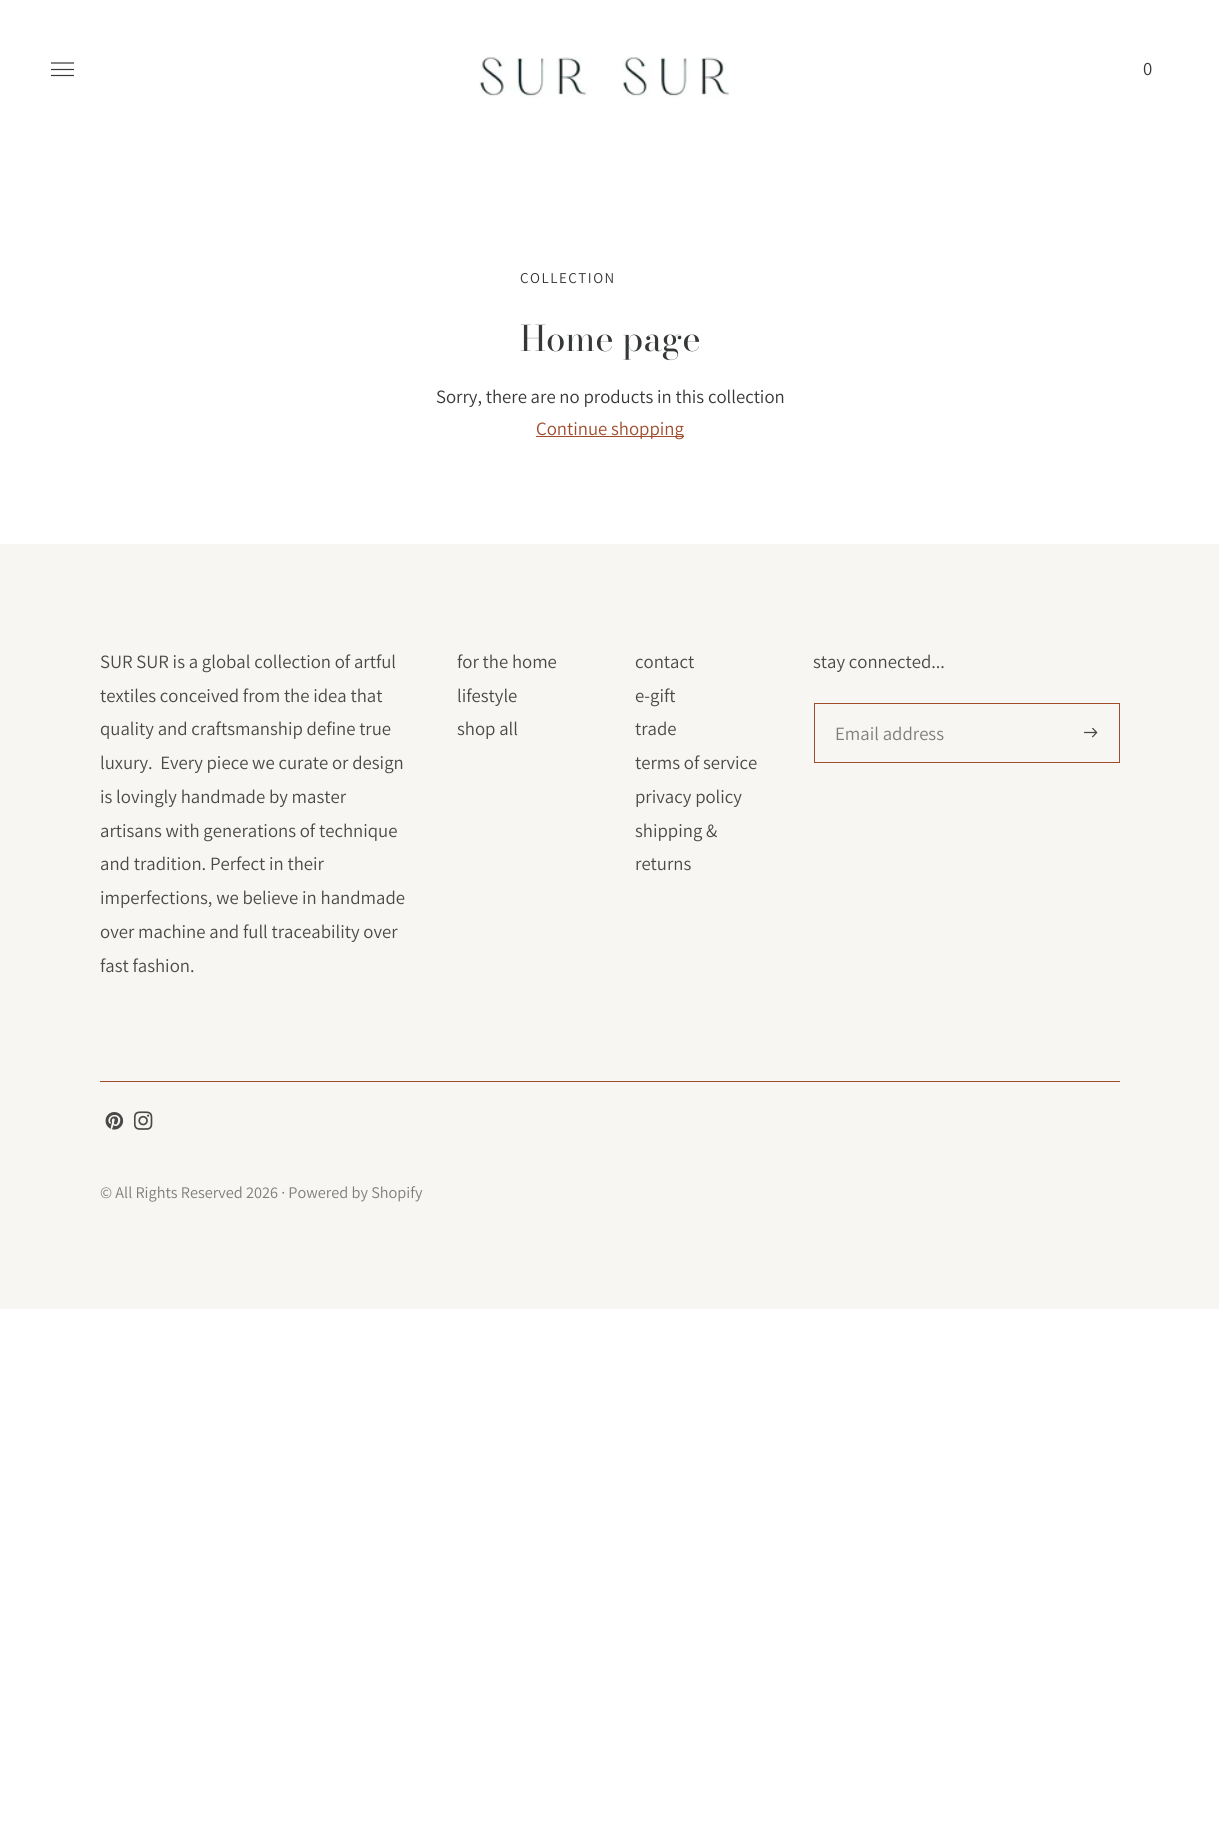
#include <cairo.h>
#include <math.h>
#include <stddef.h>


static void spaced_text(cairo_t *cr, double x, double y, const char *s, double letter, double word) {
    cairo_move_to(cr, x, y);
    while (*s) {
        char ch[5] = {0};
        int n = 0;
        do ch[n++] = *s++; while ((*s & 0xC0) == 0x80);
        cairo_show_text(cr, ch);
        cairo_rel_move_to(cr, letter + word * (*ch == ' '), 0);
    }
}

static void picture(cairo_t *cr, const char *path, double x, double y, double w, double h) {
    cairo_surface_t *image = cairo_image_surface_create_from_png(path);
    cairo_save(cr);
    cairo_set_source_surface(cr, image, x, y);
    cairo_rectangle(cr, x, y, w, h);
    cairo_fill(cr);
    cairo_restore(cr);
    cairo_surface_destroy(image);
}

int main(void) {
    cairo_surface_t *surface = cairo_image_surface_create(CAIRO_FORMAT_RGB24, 1219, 1840);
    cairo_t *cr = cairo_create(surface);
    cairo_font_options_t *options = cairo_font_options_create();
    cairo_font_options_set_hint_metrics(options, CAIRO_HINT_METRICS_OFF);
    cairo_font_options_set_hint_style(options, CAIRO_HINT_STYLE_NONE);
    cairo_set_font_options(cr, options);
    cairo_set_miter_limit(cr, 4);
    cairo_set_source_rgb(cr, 1, 1, 1);
    cairo_paint(cr);
    cairo_new_path(cr);
    cairo_move_to(cr, 51, 63);
    cairo_line_to(cr, 74, 63);
    cairo_move_to(cr, 51, 69.5);
    cairo_line_to(cr, 74, 69.5);
    cairo_move_to(cr, 51, 75.5);
    cairo_line_to(cr, 74, 75.5);
    cairo_set_source_rgb(cr, 0.208, 0.216, 0.224);
    cairo_set_line_width(cr, 1.2);
    cairo_stroke(cr);
    picture(cr, "img1.png", 479, 57, 250, 41);
    cairo_select_font_face(cr, "Assistant", CAIRO_FONT_SLANT_NORMAL, CAIRO_FONT_WEIGHT_NORMAL);
    cairo_set_font_size(cr, 18.75);
    cairo_move_to(cr, 1143, 75);
    cairo_show_text(cr, "0");
    cairo_set_font_size(cr, 15);
    spaced_text(cr, 520, 283, "COLLECTION", 1.5, 0);
    cairo_select_font_face(cr, "Bodoni Moda", CAIRO_FONT_SLANT_NORMAL, CAIRO_FONT_WEIGHT_NORMAL);
    cairo_set_font_size(cr, 35);
    cairo_move_to(cr, 520, 351);
    cairo_show_text(cr, "Home page");
    cairo_select_font_face(cr, "Assistant", CAIRO_FONT_SLANT_NORMAL, CAIRO_FONT_WEIGHT_NORMAL);
    cairo_set_font_size(cr, 18.75);
    cairo_move_to(cr, 436, 403);
    cairo_show_text(cr, "Sorry, there are no products in this collection");
    cairo_set_source_rgb(cr, 0.624, 0.298, 0.176);
    cairo_rectangle(cr, 536, 436, 148, 1);
    cairo_fill(cr);
    cairo_move_to(cr, 536, 435);
    cairo_show_text(cr, "Continue shopping");
    cairo_set_source_rgb(cr, 0.965, 0.961, 0.949);
    cairo_rectangle(cr, 0, 544, 1219, 765);
    cairo_fill(cr);
    cairo_set_source_rgb(cr, 0.29, 0.286, 0.286);
    cairo_move_to(cr, 100, 668);
    cairo_show_text(cr, "SUR SUR is a global collection of artful");
    cairo_move_to(cr, 100, 702);
    cairo_show_text(cr, "textiles conceived from the idea that");
    cairo_move_to(cr, 100, 735);
    cairo_show_text(cr, "quality and craftsmanship define true");
    cairo_move_to(cr, 100, 769);
    cairo_show_text(cr, "luxury.  Every piece we curate or design");
    cairo_move_to(cr, 100, 803);
    cairo_show_text(cr, "is lovingly handmade by master");
    cairo_move_to(cr, 100, 837);
    cairo_show_text(cr, "artisans with generations of technique");
    cairo_move_to(cr, 100, 870);
    cairo_show_text(cr, "and tradition. Perfect in their");
    cairo_move_to(cr, 100, 904);
    cairo_show_text(cr, "imperfections, we believe in handmade");
    cairo_move_to(cr, 100, 938);
    cairo_show_text(cr, "over machine and full traceability over");
    cairo_move_to(cr, 100, 972);
    cairo_show_text(cr, "fast fashion.");
    cairo_move_to(cr, 457, 668);
    cairo_show_text(cr, "for the home");
    cairo_move_to(cr, 457, 702);
    cairo_show_text(cr, "lifestyle");
    cairo_move_to(cr, 457, 735);
    cairo_show_text(cr, "shop all");
    cairo_move_to(cr, 635, 668);
    cairo_show_text(cr, "contact");
    cairo_move_to(cr, 635, 702);
    cairo_show_text(cr, "e-gift");
    cairo_move_to(cr, 635, 735);
    cairo_show_text(cr, "trade");
    cairo_move_to(cr, 635, 769);
    cairo_show_text(cr, "terms of service");
    cairo_move_to(cr, 635, 803);
    cairo_show_text(cr, "privacy policy");
    cairo_move_to(cr, 635, 837);
    cairo_show_text(cr, "shipping &");
    cairo_move_to(cr, 635, 870);
    cairo_show_text(cr, "returns");
    cairo_move_to(cr, 813, 668);
    cairo_show_text(cr, "stay connected...");
    cairo_rectangle(cr, 814.5, 703.5, 305, 59);
    cairo_set_source_rgb(cr, 0.624, 0.298, 0.176);
    cairo_set_line_width(cr, 1);
    cairo_stroke(cr);
    cairo_set_source_rgb(cr, 0.494, 0.49, 0.486);
    cairo_move_to(cr, 835, 740);
    cairo_show_text(cr, "Email address");
    picture(cr, "img2.png", 1084, 728, 14, 10);
    cairo_set_source_rgb(cr, 0.624, 0.298, 0.176);
    cairo_rectangle(cr, 100, 1081, 1020, 1);
    cairo_fill(cr);
    picture(cr, "img3.png", 105, 1112, 19, 18);
    picture(cr, "img4.png", 134, 1111, 19, 19);
    cairo_set_font_size(cr, 16.25);
    cairo_set_source_rgb(cr, 0.494, 0.49, 0.486);
    cairo_move_to(cr, 100, 1198);
    cairo_show_text(cr, "© All Rights Reserved 2026 · Powered by Shopify");
    cairo_surface_write_to_png(surface, "page.png");
    cairo_font_options_destroy(options);
    cairo_destroy(cr);
    cairo_surface_destroy(surface);
    return 0;
}
